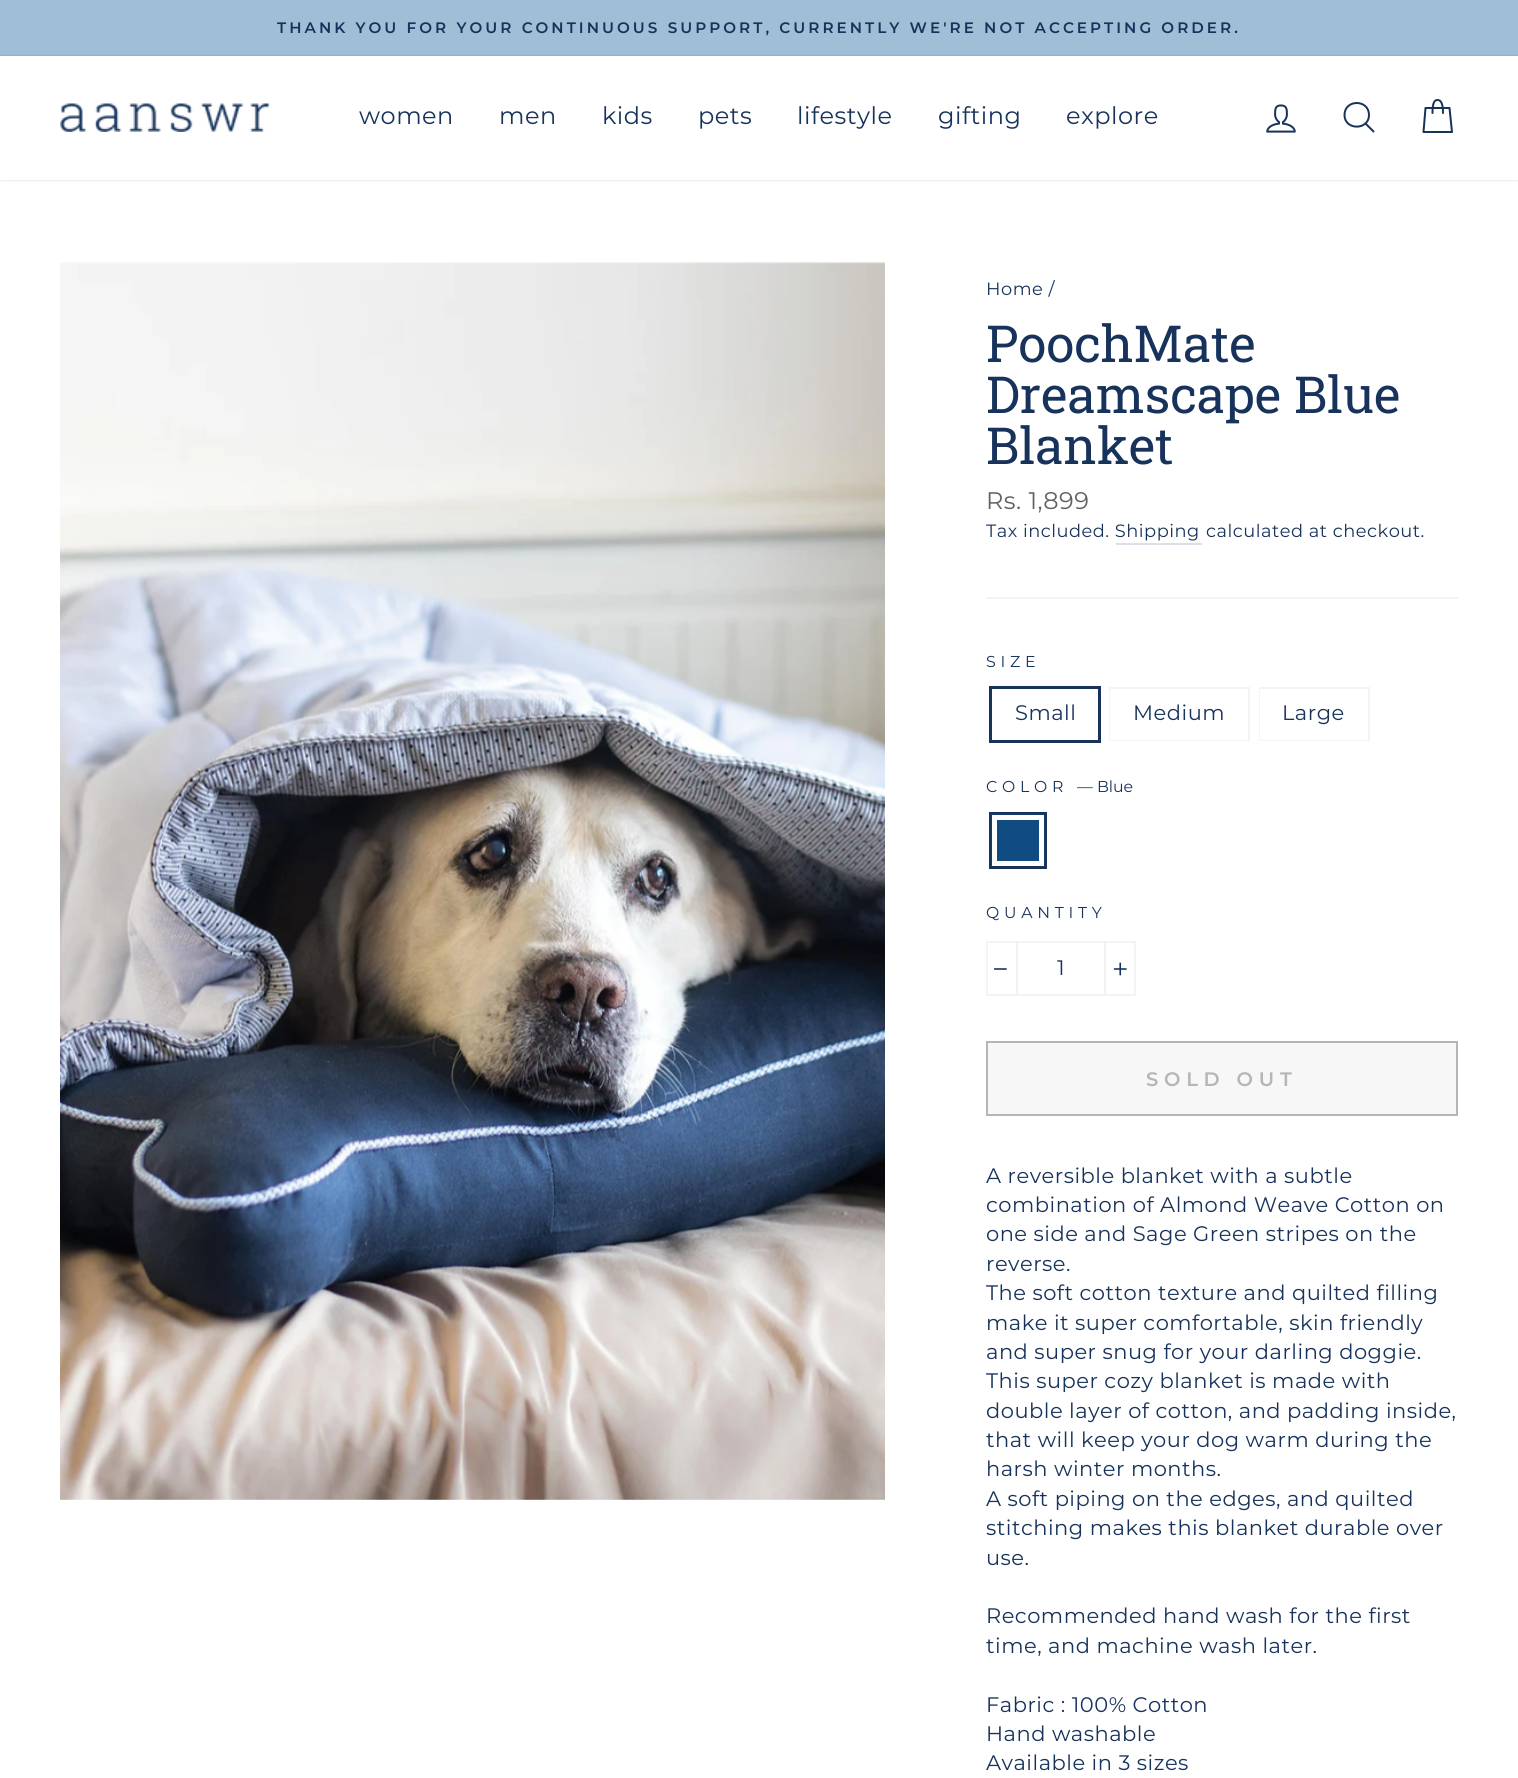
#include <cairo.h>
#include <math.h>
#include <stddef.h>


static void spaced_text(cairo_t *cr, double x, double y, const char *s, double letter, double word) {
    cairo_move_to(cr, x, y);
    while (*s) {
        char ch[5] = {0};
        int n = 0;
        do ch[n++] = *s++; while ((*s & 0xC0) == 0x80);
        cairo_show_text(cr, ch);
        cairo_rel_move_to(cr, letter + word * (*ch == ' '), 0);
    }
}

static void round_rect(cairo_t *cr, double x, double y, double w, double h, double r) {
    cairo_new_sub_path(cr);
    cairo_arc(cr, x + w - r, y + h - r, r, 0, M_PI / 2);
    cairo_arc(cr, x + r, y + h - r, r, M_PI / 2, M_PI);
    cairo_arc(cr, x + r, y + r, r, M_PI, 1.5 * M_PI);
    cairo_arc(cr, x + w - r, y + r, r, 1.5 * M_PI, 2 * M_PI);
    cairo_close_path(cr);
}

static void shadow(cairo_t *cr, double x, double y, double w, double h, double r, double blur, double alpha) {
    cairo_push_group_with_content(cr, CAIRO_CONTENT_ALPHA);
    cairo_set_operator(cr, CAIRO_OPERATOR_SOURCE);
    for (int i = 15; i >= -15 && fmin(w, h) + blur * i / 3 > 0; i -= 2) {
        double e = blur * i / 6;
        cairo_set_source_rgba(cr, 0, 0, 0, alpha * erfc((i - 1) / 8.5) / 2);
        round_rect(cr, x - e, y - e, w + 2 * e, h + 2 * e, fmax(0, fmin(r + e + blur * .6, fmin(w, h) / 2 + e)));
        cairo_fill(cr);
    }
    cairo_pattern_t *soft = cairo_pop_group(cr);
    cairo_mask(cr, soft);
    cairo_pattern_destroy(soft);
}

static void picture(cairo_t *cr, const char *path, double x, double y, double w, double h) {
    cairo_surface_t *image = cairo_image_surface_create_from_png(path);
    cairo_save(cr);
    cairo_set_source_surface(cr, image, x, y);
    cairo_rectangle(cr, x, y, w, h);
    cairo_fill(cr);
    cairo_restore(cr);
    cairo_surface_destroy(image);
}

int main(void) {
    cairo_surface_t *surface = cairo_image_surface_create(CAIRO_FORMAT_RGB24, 1518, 1778);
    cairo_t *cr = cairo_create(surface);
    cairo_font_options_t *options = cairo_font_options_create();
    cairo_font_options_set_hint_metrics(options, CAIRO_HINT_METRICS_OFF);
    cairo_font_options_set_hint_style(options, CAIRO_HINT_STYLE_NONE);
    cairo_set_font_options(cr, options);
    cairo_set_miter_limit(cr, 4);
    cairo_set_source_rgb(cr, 1, 1, 1);
    cairo_paint(cr);
    cairo_set_source_rgb(cr, 0.624, 0.749, 0.839);
    cairo_rectangle(cr, 0, 0, 1518, 56);
    cairo_fill(cr);
    cairo_select_font_face(cr, "Montserrat SemiBold", CAIRO_FONT_SLANT_NORMAL, CAIRO_FONT_WEIGHT_NORMAL);
    cairo_set_font_size(cr, 15.17);
    cairo_set_source_rgb(cr, 0.094, 0.2, 0.357);
    spaced_text(cr, 277, 33, "THANK YOU FOR YOUR CONTINUOUS SUPPORT, CURRENTLY WE'RE NOT ACCEPTING ORDER.", 3.03, 0);
    cairo_save(cr);
    cairo_set_fill_rule(cr, CAIRO_FILL_RULE_EVEN_ODD);
    cairo_new_path(cr);
    cairo_move_to(cr, 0, 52);
    cairo_line_to(cr, 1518, 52);
    cairo_line_to(cr, 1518, 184);
    cairo_line_to(cr, 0, 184);
    cairo_close_path(cr);
    cairo_move_to(cr, 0, 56);
    cairo_line_to(cr, 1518, 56);
    cairo_line_to(cr, 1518, 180);
    cairo_line_to(cr, 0, 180);
    cairo_close_path(cr);
    cairo_clip(cr);
    cairo_set_source_rgb(cr, 0, 0, 0);
    shadow(cr, 0, 56, 1518, 124, 0, 1, 0.2);
    cairo_restore(cr);
    picture(cr, "img1.png", 60, 103, 210, 29);
    cairo_select_font_face(cr, "Montserrat", CAIRO_FONT_SLANT_NORMAL, CAIRO_FONT_WEIGHT_NORMAL);
    cairo_set_font_size(cr, 24);
    spaced_text(cr, 359, 124, "women", 0.5, 0);
    spaced_text(cr, 499, 124, "men", 0.5, 0);
    spaced_text(cr, 602, 124, "kids", 0.5, 0);
    spaced_text(cr, 698, 124, "pets", 0.5, 0);
    spaced_text(cr, 797, 124, "lifestyle", 0.5, 0);
    spaced_text(cr, 938, 124, "gifting", 0.5, 0);
    spaced_text(cr, 1066, 124, "explore", 0.5, 0);
    picture(cr, "img2.png", 1266, 104, 30, 29);
    cairo_new_path(cr);
    cairo_move_to(cr, 1369, 115);
    cairo_curve_to(cr, 1369, 130.5, 1344.5, 130.5, 1344.5, 115);
    cairo_curve_to(cr, 1344.5, 99, 1369, 99, 1369, 115);
    cairo_close_path(cr);
    cairo_move_to(cr, 1373.5, 131.5);
    cairo_line_to(cr, 1365.5, 123.5);
    cairo_set_line_cap(cr, CAIRO_LINE_CAP_ROUND);
    cairo_set_line_join(cr, CAIRO_LINE_JOIN_ROUND);
    cairo_stroke(cr);
    cairo_new_path(cr);
    cairo_move_to(cr, 1432.5, 113);
    cairo_curve_to(cr, 1432.5, 102.5, 1434.5, 100, 1437.5, 100);
    cairo_curve_to(cr, 1440.5, 100, 1443, 102.5, 1443, 113);
    cairo_move_to(cr, 1425.5, 108);
    cairo_line_to(cr, 1449.5, 108);
    cairo_line_to(cr, 1452, 132);
    cairo_line_to(cr, 1423.5, 132);
    cairo_close_path(cr);
    cairo_stroke(cr);
    picture(cr, "img3.png", 60, 262, 825, 1238);
    cairo_set_font_size(cr, 17.8);
    spaced_text(cr, 986, 295, "Home /", 0.5, 0);
    cairo_select_font_face(cr, "Roboto Slab", CAIRO_FONT_SLANT_NORMAL, CAIRO_FONT_WEIGHT_NORMAL);
    cairo_set_font_size(cr, 51);
    cairo_move_to(cr, 986, 362);
    cairo_show_text(cr, "PoochMate");
    cairo_move_to(cr, 986, 413);
    cairo_show_text(cr, "Dreamscape Blue");
    cairo_move_to(cr, 986, 464);
    cairo_show_text(cr, "Blanket");
    cairo_select_font_face(cr, "Montserrat", CAIRO_FONT_SLANT_NORMAL, CAIRO_FONT_WEIGHT_NORMAL);
    cairo_set_font_size(cr, 24);
    cairo_set_source_rgb(cr, 0.38, 0.38, 0.38);
    spaced_text(cr, 986, 509, "Rs. 1,899", 0.5, 0);
    cairo_set_font_size(cr, 17.8);
    cairo_set_source_rgb(cr, 0.094, 0.2, 0.357);
    spaced_text(cr, 986, 537, "Tax included. Shipping", 0.5, 0);
    spaced_text(cr, 1206, 537, "calculated at checkout.", 0.5, 0);
    cairo_set_source_rgb(cr, 0.863, 0.878, 0.902);
    cairo_rectangle(cr, 1116, 543, 86, 2);
    cairo_fill(cr);
    cairo_set_source_rgb(cr, 0.957, 0.957, 0.957);
    cairo_rectangle(cr, 986, 597, 472, 2);
    cairo_fill(cr);
    cairo_set_font_size(cr, 15.75);
    cairo_set_source_rgb(cr, 0.094, 0.2, 0.357);
    spaced_text(cr, 986, 667, "SIZE", 4.75, 0);
    cairo_rectangle(cr, 990.5, 687.5, 109, 54);
    cairo_set_line_width(cr, 3);
    cairo_set_line_cap(cr, CAIRO_LINE_CAP_BUTT);
    cairo_set_line_join(cr, CAIRO_LINE_JOIN_MITER);
    cairo_stroke(cr);
    cairo_set_font_size(cr, 21);
    spaced_text(cr, 1015, 720, "Small", 0.5, 0);
    cairo_rectangle(cr, 1110, 688, 139, 52);
    cairo_set_source_rgb(cr, 0.957, 0.957, 0.957);
    cairo_set_line_width(cr, 2);
    cairo_stroke(cr);
    cairo_set_source_rgb(cr, 1, 1, 1);
    cairo_rectangle(cr, 1110, 689, 138, 51);
    cairo_fill(cr);
    cairo_set_source_rgb(cr, 0.094, 0.2, 0.357);
    spaced_text(cr, 1133, 720, "Medium", 0.5, 0);
    cairo_rectangle(cr, 1260, 688, 109, 52);
    cairo_set_source_rgb(cr, 0.957, 0.957, 0.957);
    cairo_stroke(cr);
    cairo_set_source_rgb(cr, 1, 1, 1);
    cairo_rectangle(cr, 1260, 689, 108, 51);
    cairo_fill(cr);
    cairo_set_source_rgb(cr, 0.094, 0.2, 0.357);
    spaced_text(cr, 1282, 720, "Large", 0.5, 0);
    cairo_set_font_size(cr, 15.75);
    spaced_text(cr, 986, 792, "COLOR", 4.75, 0);
    cairo_move_to(cr, 1077, 792);
    cairo_show_text(cr, "— Blue");
    cairo_rectangle(cr, 990.5, 813.5, 55, 54);
    cairo_set_line_width(cr, 3);
    cairo_stroke(cr);
    picture(cr, "img4.png", 991, 814, 54, 52);
    cairo_rectangle(cr, 994.5, 817.5, 47, 46);
    cairo_set_source_rgb(cr, 1, 1, 1);
    cairo_set_line_width(cr, 5);
    cairo_stroke(cr);
    cairo_set_source_rgb(cr, 0.094, 0.2, 0.357);
    spaced_text(cr, 986, 918, "QUANTITY", 4.75, 0);
    cairo_rectangle(cr, 987, 942, 148, 53);
    cairo_set_source_rgb(cr, 0.957, 0.957, 0.957);
    cairo_set_line_width(cr, 2);
    cairo_stroke(cr);
    cairo_set_source_rgb(cr, 0.949, 0.949, 0.949);
    cairo_rectangle(cr, 1016, 941, 2, 55);
    cairo_fill(cr);
    picture(cr, "img5.png", 993, 968, 14, 2);
    cairo_set_font_size(cr, 21);
    cairo_set_source_rgb(cr, 0.094, 0.2, 0.357);
    spaced_text(cr, 1057, 975, "1", 0.5, 0);
    cairo_set_source_rgb(cr, 0.949, 0.949, 0.949);
    cairo_rectangle(cr, 1104, 941, 2, 55);
    cairo_fill(cr);
    picture(cr, "img6.png", 1113, 962, 14, 14);
    cairo_set_source_rgb(cr, 0.965, 0.965, 0.965);
    cairo_rectangle(cr, 987, 1042, 470, 73);
    cairo_fill_preserve(cr);
    cairo_set_source_rgb(cr, 0.714, 0.714, 0.714);
    cairo_stroke(cr);
    cairo_select_font_face(cr, "Montserrat SemiBold", CAIRO_FONT_SLANT_NORMAL, CAIRO_FONT_WEIGHT_NORMAL);
    cairo_set_font_size(cr, 19.5);
    spaced_text(cr, 1146, 1086, "SOLD OUT", 5.75, 0);
    cairo_select_font_face(cr, "Montserrat", CAIRO_FONT_SLANT_NORMAL, CAIRO_FONT_WEIGHT_NORMAL);
    cairo_set_font_size(cr, 21);
    cairo_set_source_rgb(cr, 0.094, 0.2, 0.357);
    spaced_text(cr, 986, 1183, "A reversible blanket with a subtle", 0.5, 0);
    spaced_text(cr, 986, 1212, "combination of Almond Weave Cotton on", 0.5, 0);
    spaced_text(cr, 986, 1241, "one side and Sage Green stripes on the", 0.5, 0);
    spaced_text(cr, 986, 1271, "reverse.", 0.5, 0);
    spaced_text(cr, 986, 1300, "The soft cotton texture and quilted filling", 0.5, 0);
    spaced_text(cr, 986, 1330, "make it super comfortable, skin friendly", 0.5, 0);
    spaced_text(cr, 986, 1359, "and super snug for your darling doggie.", 0.5, 0);
    spaced_text(cr, 986, 1388, "This super cozy blanket is made with", 0.5, 0);
    spaced_text(cr, 986, 1418, "double layer of cotton, and padding inside,", 0.5, 0);
    spaced_text(cr, 986, 1447, "that will keep your dog warm during the", 0.5, 0);
    spaced_text(cr, 986, 1476, "harsh winter months.", 0.5, 0);
    spaced_text(cr, 986, 1506, "A soft piping on the edges, and quilted", 0.5, 0);
    spaced_text(cr, 986, 1535, "stitching makes this blanket durable over", 0.5, 0);
    spaced_text(cr, 986, 1565, "use.", 0.5, 0);
    spaced_text(cr, 986, 1623, "Recommended hand wash for the first", 0.5, 0);
    spaced_text(cr, 986, 1653, "time, and machine wash later.", 0.5, 0);
    spaced_text(cr, 986, 1712, "Fabric : 100% Cotton", 0.5, 0);
    spaced_text(cr, 986, 1741, "Hand washable", 0.5, 0);
    spaced_text(cr, 986, 1770, "Available in 3 sizes", 0.5, 0);
    cairo_surface_write_to_png(surface, "page.png");
    cairo_font_options_destroy(options);
    cairo_destroy(cr);
    cairo_surface_destroy(surface);
    return 0;
}
